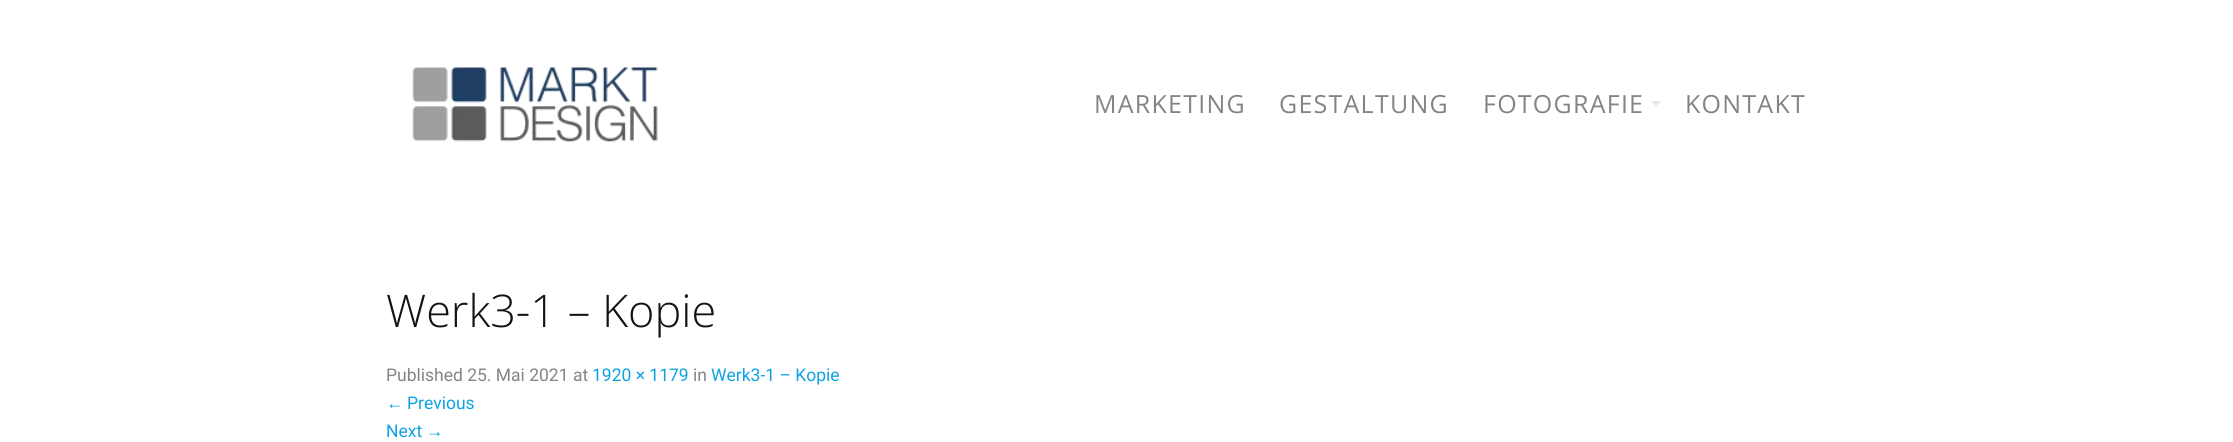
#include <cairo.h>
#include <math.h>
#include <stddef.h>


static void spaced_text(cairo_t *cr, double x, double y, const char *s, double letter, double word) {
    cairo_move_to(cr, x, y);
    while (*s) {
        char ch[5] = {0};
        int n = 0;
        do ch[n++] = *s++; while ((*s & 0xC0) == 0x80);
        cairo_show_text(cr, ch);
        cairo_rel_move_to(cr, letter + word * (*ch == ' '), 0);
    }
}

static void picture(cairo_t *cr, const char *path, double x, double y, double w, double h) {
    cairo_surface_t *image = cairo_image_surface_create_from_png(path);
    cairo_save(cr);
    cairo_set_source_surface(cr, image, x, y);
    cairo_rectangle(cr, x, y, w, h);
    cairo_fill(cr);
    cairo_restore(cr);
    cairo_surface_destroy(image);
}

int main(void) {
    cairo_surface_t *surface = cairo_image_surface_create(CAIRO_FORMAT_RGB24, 2233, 442);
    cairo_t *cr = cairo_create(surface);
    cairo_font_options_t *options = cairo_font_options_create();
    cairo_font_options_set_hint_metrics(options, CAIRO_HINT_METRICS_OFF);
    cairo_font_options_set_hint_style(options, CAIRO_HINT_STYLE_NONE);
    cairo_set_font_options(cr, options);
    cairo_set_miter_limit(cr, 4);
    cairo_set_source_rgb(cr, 1, 1, 1);
    cairo_paint(cr);
    picture(cr, "img1.png", 412, 67, 246, 75);
    cairo_select_font_face(cr, "Open Sans", CAIRO_FONT_SLANT_NORMAL, CAIRO_FONT_WEIGHT_NORMAL);
    cairo_set_font_size(cr, 25);
    cairo_set_source_rgb(cr, 0.518, 0.518, 0.518);
    spaced_text(cr, 1094, 113, "MARKETING", 1.25, 0);
    spaced_text(cr, 1279, 113, "GESTALTUNG", 1.25, 0);
    spaced_text(cr, 1483, 113, "FOTOGRAFIE", 1.25, 0);
    cairo_set_source_rgb(cr, 0.906, 0.906, 0.906);
    cairo_new_path(cr);
    cairo_move_to(cr, 1651, 101);
    cairo_line_to(cr, 1661, 101);
    cairo_line_to(cr, 1656, 106);
    cairo_close_path(cr);
    cairo_fill(cr);
    cairo_set_source_rgb(cr, 0.518, 0.518, 0.518);
    spaced_text(cr, 1685, 113, "KONTAKT", 1.25, 0);
    cairo_select_font_face(cr, "Open Sans Light", CAIRO_FONT_SLANT_NORMAL, CAIRO_FONT_WEIGHT_NORMAL);
    cairo_set_font_size(cr, 45);
    cairo_set_source_rgb(cr, 0.078, 0.078, 0.078);
    cairo_move_to(cr, 386, 327);
    cairo_show_text(cr, "Werk3-1 – Kopie");
    cairo_select_font_face(cr, "Roboto", CAIRO_FONT_SLANT_NORMAL, CAIRO_FONT_WEIGHT_NORMAL);
    cairo_set_font_size(cr, 17.5);
    cairo_set_source_rgb(cr, 0.518, 0.518, 0.518);
    cairo_move_to(cr, 386, 381);
    cairo_show_text(cr, "Published 25. Mai 2021 at");
    cairo_set_source_rgb(cr, 0.059, 0.635, 0.89);
    cairo_move_to(cr, 592, 381);
    cairo_show_text(cr, "1920 × 1179");
    cairo_set_source_rgb(cr, 0.518, 0.518, 0.518);
    cairo_move_to(cr, 693, 381);
    cairo_show_text(cr, "in");
    cairo_set_source_rgb(cr, 0.059, 0.635, 0.89);
    cairo_move_to(cr, 711, 381);
    cairo_show_text(cr, "Werk3-1 – Kopie");
    cairo_select_font_face(cr, "Liberation Sans", CAIRO_FONT_SLANT_NORMAL, CAIRO_FONT_WEIGHT_NORMAL);
    cairo_move_to(cr, 386, 409);
    cairo_show_text(cr, "←");
    cairo_select_font_face(cr, "Roboto", CAIRO_FONT_SLANT_NORMAL, CAIRO_FONT_WEIGHT_NORMAL);
    cairo_move_to(cr, 407, 409);
    cairo_show_text(cr, "Previous");
    cairo_move_to(cr, 386, 437);
    cairo_show_text(cr, "Next");
    cairo_select_font_face(cr, "Liberation Sans", CAIRO_FONT_SLANT_NORMAL, CAIRO_FONT_WEIGHT_NORMAL);
    cairo_move_to(cr, 426, 437);
    cairo_show_text(cr, "→");
    cairo_surface_write_to_png(surface, "page.png");
    cairo_font_options_destroy(options);
    cairo_destroy(cr);
    cairo_surface_destroy(surface);
    return 0;
}
